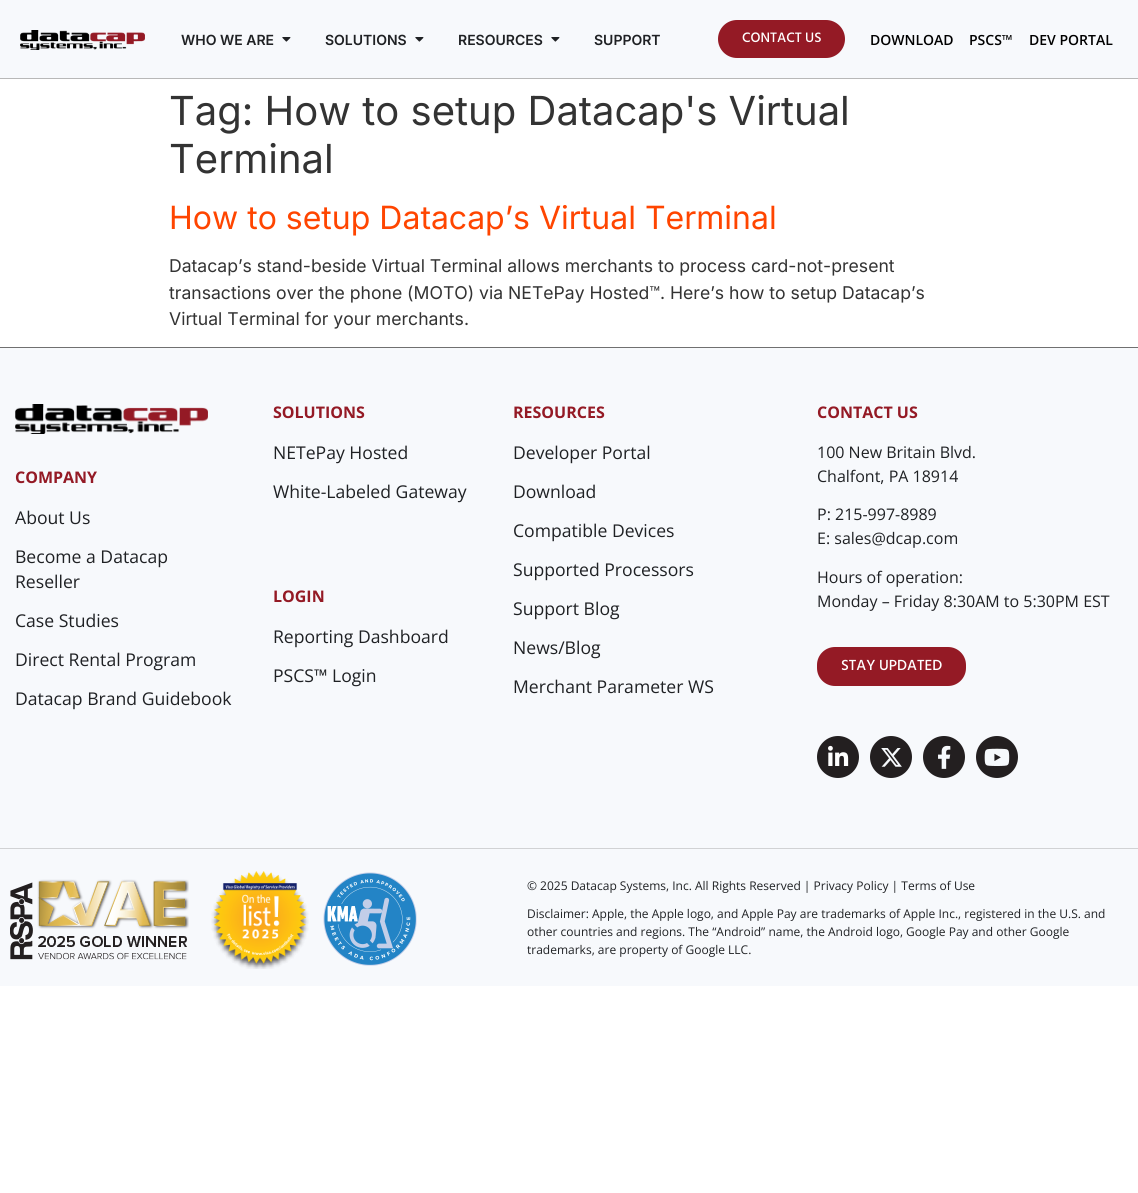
#include <cairo.h>
#include <math.h>
#include <stddef.h>


static void round_rect(cairo_t *cr, double x, double y, double w, double h, double r) {
    cairo_new_sub_path(cr);
    cairo_arc(cr, x + w - r, y + h - r, r, 0, M_PI / 2);
    cairo_arc(cr, x + r, y + h - r, r, M_PI / 2, M_PI);
    cairo_arc(cr, x + r, y + r, r, M_PI, 1.5 * M_PI);
    cairo_arc(cr, x + w - r, y + r, r, 1.5 * M_PI, 2 * M_PI);
    cairo_close_path(cr);
}

static void picture(cairo_t *cr, const char *path, double x, double y, double w, double h) {
    cairo_surface_t *image = cairo_image_surface_create_from_png(path);
    cairo_save(cr);
    cairo_set_source_surface(cr, image, x, y);
    cairo_rectangle(cr, x, y, w, h);
    cairo_fill(cr);
    cairo_restore(cr);
    cairo_surface_destroy(image);
}

int main(void) {
    cairo_surface_t *surface = cairo_image_surface_create(CAIRO_FORMAT_RGB24, 1138, 1193);
    cairo_t *cr = cairo_create(surface);
    cairo_font_options_t *options = cairo_font_options_create();
    cairo_font_options_set_hint_metrics(options, CAIRO_HINT_METRICS_OFF);
    cairo_font_options_set_hint_style(options, CAIRO_HINT_STYLE_NONE);
    cairo_set_font_options(cr, options);
    cairo_set_miter_limit(cr, 4);
    cairo_set_source_rgb(cr, 1, 1, 1);
    cairo_paint(cr);
    cairo_set_source_rgb(cr, 0.965, 0.976, 0.988);
    cairo_rectangle(cr, 0, 0, 1138, 78);
    cairo_fill(cr);
    cairo_set_source_rgb(cr, 0.722, 0.722, 0.722);
    cairo_rectangle(cr, 0, 78, 1138, 1);
    cairo_fill(cr);
    picture(cr, "img1.png", 20, 30, 125, 20);
    cairo_select_font_face(cr, "Inter SemiBold", CAIRO_FONT_SLANT_NORMAL, CAIRO_FONT_WEIGHT_NORMAL);
    cairo_set_font_size(cr, 14);
    cairo_set_source_rgb(cr, 0.122, 0.129, 0.141);
    cairo_move_to(cr, 181, 45);
    cairo_show_text(cr, "WHO WE ARE");
    picture(cr, "img2.png", 282, 37, 9, 5);
    cairo_move_to(cr, 325, 45);
    cairo_show_text(cr, "SOLUTIONS");
    picture(cr, "img2.png", 415, 37, 9, 5);
    cairo_move_to(cr, 458, 45);
    cairo_show_text(cr, "RESOURCES");
    picture(cr, "img2.png", 551, 37, 9, 5);
    cairo_move_to(cr, 594, 45);
    cairo_show_text(cr, "SUPPORT");
    cairo_set_source_rgb(cr, 0.58, 0.102, 0.145);
    round_rect(cr, 718, 20, 127, 38, 19);
    cairo_fill(cr);
    cairo_select_font_face(cr, "Hind Medium", CAIRO_FONT_SLANT_NORMAL, CAIRO_FONT_WEIGHT_NORMAL);
    cairo_set_source_rgb(cr, 1, 1, 1);
    cairo_move_to(cr, 742, 42);
    cairo_show_text(cr, "CONTACT US");
    cairo_select_font_face(cr, "Open Sans SemiBold", CAIRO_FONT_SLANT_NORMAL, CAIRO_FONT_WEIGHT_NORMAL);
    cairo_set_source_rgb(cr, 0, 0, 0);
    cairo_move_to(cr, 870, 45);
    cairo_show_text(cr, "DOWNLOAD");
    cairo_move_to(cr, 969, 45);
    cairo_show_text(cr, "PSCS™");
    cairo_move_to(cr, 1029, 45);
    cairo_show_text(cr, "DEV PORTAL");
    cairo_select_font_face(cr, "Inter", CAIRO_FONT_SLANT_NORMAL, CAIRO_FONT_WEIGHT_NORMAL);
    cairo_set_font_size(cr, 40);
    cairo_set_source_rgb(cr, 0.2, 0.2, 0.2);
    cairo_move_to(cr, 169, 125);
    cairo_show_text(cr, "Tag: How to setup Datacap's Virtual");
    cairo_move_to(cr, 169, 173);
    cairo_show_text(cr, "Terminal");
    cairo_set_font_size(cr, 32);
    cairo_set_source_rgb(cr, 1, 0.271, 0);
    cairo_move_to(cr, 169, 229);
    cairo_show_text(cr, "How to setup Datacap’s Virtual Terminal");
    cairo_set_font_size(cr, 17.6);
    cairo_set_source_rgb(cr, 0.2, 0.2, 0.2);
    cairo_move_to(cr, 169, 272);
    cairo_show_text(cr, "Datacap’s stand-beside Virtual Terminal allows merchants to process card-not-present");
    cairo_move_to(cr, 169, 299);
    cairo_show_text(cr, "transactions over the phone (MOTO) via NETePay Hosted™. Here’s how to setup Datacap’s");
    cairo_move_to(cr, 169, 325);
    cairo_show_text(cr, "Virtual Terminal for your merchants.");
    cairo_set_source_rgb(cr, 0.965, 0.976, 0.988);
    cairo_rectangle(cr, 0, 348, 1138, 500);
    cairo_fill(cr);
    cairo_set_source_rgb(cr, 0.439, 0.439, 0.439);
    cairo_rectangle(cr, 0, 347, 1138, 1);
    cairo_fill(cr);
    picture(cr, "img3.png", 15, 404, 193, 30);
    cairo_select_font_face(cr, "Open Sans", CAIRO_FONT_SLANT_NORMAL, CAIRO_FONT_WEIGHT_BOLD);
    cairo_set_font_size(cr, 16);
    cairo_set_source_rgb(cr, 0.58, 0.102, 0.145);
    cairo_move_to(cr, 15, 483);
    cairo_show_text(cr, "COMPANY");
    cairo_select_font_face(cr, "Open Sans", CAIRO_FONT_SLANT_NORMAL, CAIRO_FONT_WEIGHT_NORMAL);
    cairo_set_font_size(cr, 17.6);
    cairo_set_source_rgb(cr, 0.122, 0.129, 0.141);
    cairo_move_to(cr, 15, 524);
    cairo_show_text(cr, "About Us");
    cairo_move_to(cr, 15, 563);
    cairo_show_text(cr, "Become a Datacap");
    cairo_move_to(cr, 15, 588);
    cairo_show_text(cr, "Reseller");
    cairo_move_to(cr, 15, 627);
    cairo_show_text(cr, "Case Studies");
    cairo_move_to(cr, 15, 666);
    cairo_show_text(cr, "Direct Rental Program");
    cairo_move_to(cr, 15, 705);
    cairo_show_text(cr, "Datacap Brand Guidebook");
    cairo_select_font_face(cr, "Open Sans", CAIRO_FONT_SLANT_NORMAL, CAIRO_FONT_WEIGHT_BOLD);
    cairo_set_font_size(cr, 16);
    cairo_set_source_rgb(cr, 0.58, 0.102, 0.145);
    cairo_move_to(cr, 273, 418);
    cairo_show_text(cr, "SOLUTIONS");
    cairo_select_font_face(cr, "Open Sans", CAIRO_FONT_SLANT_NORMAL, CAIRO_FONT_WEIGHT_NORMAL);
    cairo_set_font_size(cr, 17.6);
    cairo_set_source_rgb(cr, 0.122, 0.129, 0.141);
    cairo_move_to(cr, 273, 459);
    cairo_show_text(cr, "NETePay Hosted");
    cairo_move_to(cr, 273, 498);
    cairo_show_text(cr, "White-Labeled Gateway");
    cairo_select_font_face(cr, "Open Sans", CAIRO_FONT_SLANT_NORMAL, CAIRO_FONT_WEIGHT_BOLD);
    cairo_set_font_size(cr, 16);
    cairo_set_source_rgb(cr, 0.58, 0.102, 0.145);
    cairo_move_to(cr, 273, 602);
    cairo_show_text(cr, "LOGIN");
    cairo_select_font_face(cr, "Open Sans", CAIRO_FONT_SLANT_NORMAL, CAIRO_FONT_WEIGHT_NORMAL);
    cairo_set_font_size(cr, 17.6);
    cairo_set_source_rgb(cr, 0.122, 0.129, 0.141);
    cairo_move_to(cr, 273, 643);
    cairo_show_text(cr, "Reporting Dashboard");
    cairo_move_to(cr, 273, 682);
    cairo_show_text(cr, "PSCS™ Login");
    cairo_select_font_face(cr, "Open Sans", CAIRO_FONT_SLANT_NORMAL, CAIRO_FONT_WEIGHT_BOLD);
    cairo_set_font_size(cr, 16);
    cairo_set_source_rgb(cr, 0.58, 0.102, 0.145);
    cairo_move_to(cr, 513, 418);
    cairo_show_text(cr, "RESOURCES");
    cairo_select_font_face(cr, "Open Sans", CAIRO_FONT_SLANT_NORMAL, CAIRO_FONT_WEIGHT_NORMAL);
    cairo_set_font_size(cr, 17.6);
    cairo_set_source_rgb(cr, 0.122, 0.129, 0.141);
    cairo_move_to(cr, 513, 459);
    cairo_show_text(cr, "Developer Portal");
    cairo_move_to(cr, 513, 498);
    cairo_show_text(cr, "Download");
    cairo_move_to(cr, 513, 537);
    cairo_show_text(cr, "Compatible Devices");
    cairo_move_to(cr, 513, 576);
    cairo_show_text(cr, "Supported Processors");
    cairo_move_to(cr, 513, 615);
    cairo_show_text(cr, "Support Blog");
    cairo_move_to(cr, 513, 654);
    cairo_show_text(cr, "News/Blog");
    cairo_move_to(cr, 513, 693);
    cairo_show_text(cr, "Merchant Parameter WS");
    cairo_select_font_face(cr, "Open Sans", CAIRO_FONT_SLANT_NORMAL, CAIRO_FONT_WEIGHT_BOLD);
    cairo_set_font_size(cr, 16);
    cairo_set_source_rgb(cr, 0.58, 0.102, 0.145);
    cairo_move_to(cr, 817, 418);
    cairo_show_text(cr, "CONTACT US");
    cairo_select_font_face(cr, "Open Sans", CAIRO_FONT_SLANT_NORMAL, CAIRO_FONT_WEIGHT_NORMAL);
    cairo_set_source_rgb(cr, 0.122, 0.129, 0.141);
    cairo_move_to(cr, 817, 458);
    cairo_show_text(cr, "100 New Britain Blvd.");
    cairo_move_to(cr, 817, 482);
    cairo_show_text(cr, "Chalfont, PA 18914");
    cairo_move_to(cr, 817, 520);
    cairo_show_text(cr, "P: 215-997-8989");
    cairo_move_to(cr, 817, 544);
    cairo_show_text(cr, "E: sales@dcap.com");
    cairo_move_to(cr, 817, 583);
    cairo_show_text(cr, "Hours of operation:");
    cairo_move_to(cr, 817, 607);
    cairo_show_text(cr, "Monday – Friday 8:30AM to 5:30PM EST");
    cairo_set_source_rgb(cr, 0.58, 0.102, 0.145);
    round_rect(cr, 817, 647, 149, 39, 18);
    cairo_fill(cr);
    cairo_select_font_face(cr, "Hind Medium", CAIRO_FONT_SLANT_NORMAL, CAIRO_FONT_WEIGHT_NORMAL);
    cairo_set_font_size(cr, 15);
    cairo_set_source_rgb(cr, 1, 1, 1);
    cairo_move_to(cr, 841, 670);
    cairo_show_text(cr, "STAY UPDATED");
    cairo_set_source_rgb(cr, 0.137, 0.122, 0.125);
    cairo_new_path(cr);
    cairo_arc(cr, 838, 757, 21, 0, 2 * M_PI);
    cairo_fill(cr);
    picture(cr, "img4.png", 828, 745, 21, 21);
    cairo_arc(cr, 891, 757, 21, 0, 2 * M_PI);
    cairo_fill(cr);
    picture(cr, "img5.png", 881, 748, 21, 19);
    cairo_arc(cr, 944, 757, 21, 0, 2 * M_PI);
    cairo_fill(cr);
    picture(cr, "img6.png", 938, 745, 13, 24);
    cairo_arc(cr, 997, 757, 21, 0, 2 * M_PI);
    cairo_fill(cr);
    picture(cr, "img7.png", 984, 748, 26, 18);
    cairo_set_source_rgb(cr, 0.965, 0.976, 0.988);
    cairo_rectangle(cr, 0, 849, 1138, 137);
    cairo_fill(cr);
    cairo_set_source_rgb(cr, 0.82, 0.824, 0.831);
    cairo_rectangle(cr, 0, 848, 1138, 1);
    cairo_fill(cr);
    picture(cr, "img8.png", 10, 879, 179, 81);
    picture(cr, "img9.png", 211, 871, 98, 98);
    picture(cr, "img10.png", 323, 872, 94, 94);
    cairo_select_font_face(cr, "Open Sans", CAIRO_FONT_SLANT_NORMAL, CAIRO_FONT_WEIGHT_NORMAL);
    cairo_set_font_size(cr, 12);
    cairo_set_source_rgb(cr, 0.122, 0.129, 0.141);
    cairo_move_to(cr, 527, 890);
    cairo_show_text(cr, "© 2025 Datacap Systems, Inc. All Rights Reserved | Privacy Policy | Terms of Use");
    cairo_move_to(cr, 527, 918);
    cairo_show_text(cr, "Disclaimer: Apple, the Apple logo, and Apple Pay are trademarks of Apple Inc., registered in the U.S. and");
    cairo_move_to(cr, 527, 936);
    cairo_show_text(cr, "other countries and regions. The “Android” name, the Android logo, Google Pay and other Google");
    cairo_move_to(cr, 527, 954);
    cairo_show_text(cr, "trademarks, are property of Google LLC.");
    cairo_surface_write_to_png(surface, "page.png");
    cairo_font_options_destroy(options);
    cairo_destroy(cr);
    cairo_surface_destroy(surface);
    return 0;
}
